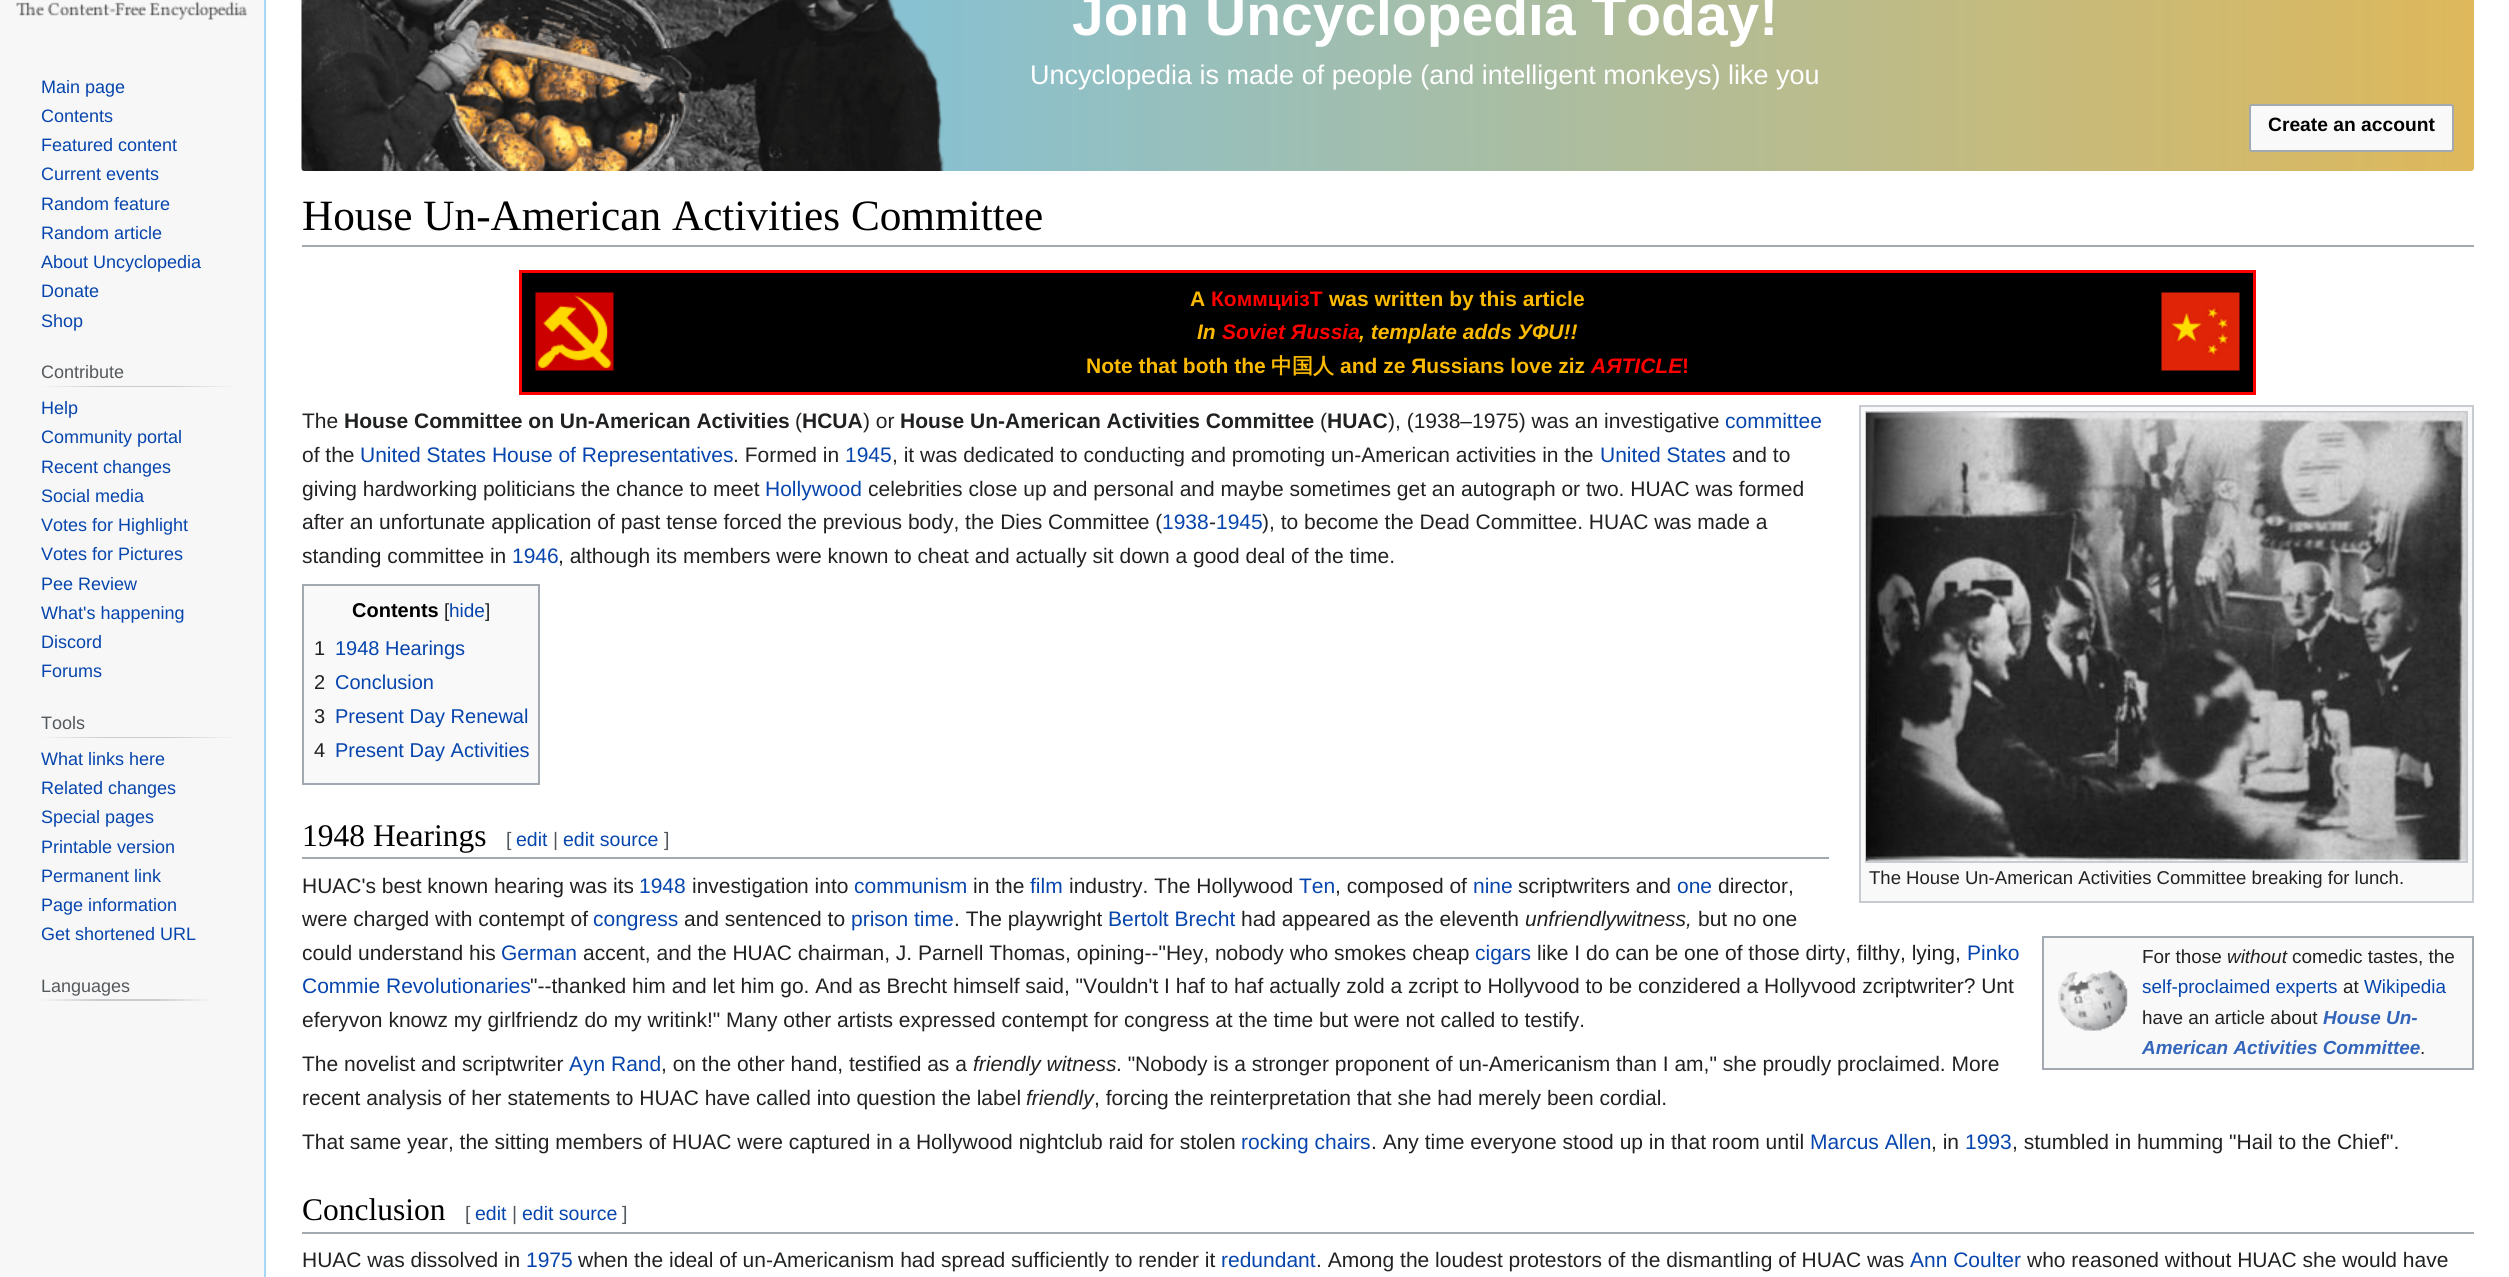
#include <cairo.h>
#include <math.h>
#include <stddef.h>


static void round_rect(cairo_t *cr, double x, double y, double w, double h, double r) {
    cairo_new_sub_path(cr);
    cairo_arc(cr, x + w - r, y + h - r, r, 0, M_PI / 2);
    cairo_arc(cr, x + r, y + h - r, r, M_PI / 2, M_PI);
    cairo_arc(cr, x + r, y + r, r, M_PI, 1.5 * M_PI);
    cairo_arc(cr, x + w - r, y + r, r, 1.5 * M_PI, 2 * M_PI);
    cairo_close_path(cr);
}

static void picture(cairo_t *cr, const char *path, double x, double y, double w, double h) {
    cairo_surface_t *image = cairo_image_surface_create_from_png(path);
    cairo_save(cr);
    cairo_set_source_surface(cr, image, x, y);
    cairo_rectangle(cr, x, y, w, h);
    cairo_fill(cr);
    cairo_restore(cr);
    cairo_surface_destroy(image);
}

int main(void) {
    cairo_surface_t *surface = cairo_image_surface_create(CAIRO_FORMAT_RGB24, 2509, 1277);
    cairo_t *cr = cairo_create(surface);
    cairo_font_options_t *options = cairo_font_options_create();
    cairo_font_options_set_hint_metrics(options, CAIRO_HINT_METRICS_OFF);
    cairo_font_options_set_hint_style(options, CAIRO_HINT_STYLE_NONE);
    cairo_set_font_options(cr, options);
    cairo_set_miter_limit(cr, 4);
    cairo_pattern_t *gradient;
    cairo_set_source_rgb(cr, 0.965, 0.965, 0.965);
    cairo_paint(cr);
    picture(cr, "img1.png", 16, 1, 232, 19);
    cairo_select_font_face(cr, "Liberation Sans", CAIRO_FONT_SLANT_NORMAL, CAIRO_FONT_WEIGHT_NORMAL);
    cairo_set_font_size(cr, 18);
    cairo_set_source_rgb(cr, 0.024, 0.271, 0.678);
    cairo_move_to(cr, 41, 93);
    cairo_show_text(cr, "Main page");
    cairo_move_to(cr, 41, 122);
    cairo_show_text(cr, "Contents");
    cairo_move_to(cr, 41, 151);
    cairo_show_text(cr, "Featured content");
    cairo_move_to(cr, 41, 180);
    cairo_show_text(cr, "Current events");
    cairo_move_to(cr, 41, 210);
    cairo_show_text(cr, "Random feature");
    cairo_move_to(cr, 41, 239);
    cairo_show_text(cr, "Random article");
    cairo_move_to(cr, 41, 268);
    cairo_show_text(cr, "About Uncyclopedia");
    cairo_move_to(cr, 41, 297);
    cairo_show_text(cr, "Donate");
    cairo_move_to(cr, 41, 327);
    cairo_show_text(cr, "Shop");
    gradient = cairo_pattern_create_linear(41, 386, 237, 386);
    cairo_pattern_add_color_stop_rgba(gradient, 0, 0.965, 0.965, 0.965, 1);
    cairo_pattern_add_color_stop_rgba(gradient, 0.33, 0.784, 0.8, 0.82, 1);
    cairo_pattern_add_color_stop_rgba(gradient, 0.66, 0.784, 0.8, 0.82, 1);
    cairo_pattern_add_color_stop_rgba(gradient, 1, 0.965, 0.965, 0.965, 1);
    cairo_set_source(cr, gradient);
    cairo_pattern_destroy(gradient);
    cairo_rectangle(cr, 41, 386, 196, 1);
    cairo_fill(cr);
    cairo_set_source_rgb(cr, 0.329, 0.349, 0.365);
    cairo_move_to(cr, 41, 378);
    cairo_show_text(cr, "Contribute");
    cairo_set_source_rgb(cr, 0.024, 0.271, 0.678);
    cairo_move_to(cr, 41, 414);
    cairo_show_text(cr, "Help");
    cairo_move_to(cr, 41, 443);
    cairo_show_text(cr, "Community portal");
    cairo_move_to(cr, 41, 473);
    cairo_show_text(cr, "Recent changes");
    cairo_move_to(cr, 41, 502);
    cairo_show_text(cr, "Social media");
    cairo_move_to(cr, 41, 531);
    cairo_show_text(cr, "Votes for Highlight");
    cairo_move_to(cr, 41, 560);
    cairo_show_text(cr, "Votes for Pictures");
    cairo_move_to(cr, 41, 590);
    cairo_show_text(cr, "Pee Review");
    cairo_move_to(cr, 41, 619);
    cairo_show_text(cr, "What's happening");
    cairo_move_to(cr, 41, 648);
    cairo_show_text(cr, "Discord");
    cairo_move_to(cr, 41, 677);
    cairo_show_text(cr, "Forums");
    gradient = cairo_pattern_create_linear(41, 737, 237, 737);
    cairo_pattern_add_color_stop_rgba(gradient, 0, 0.965, 0.965, 0.965, 1);
    cairo_pattern_add_color_stop_rgba(gradient, 0.33, 0.784, 0.8, 0.82, 1);
    cairo_pattern_add_color_stop_rgba(gradient, 0.66, 0.784, 0.8, 0.82, 1);
    cairo_pattern_add_color_stop_rgba(gradient, 1, 0.965, 0.965, 0.965, 1);
    cairo_set_source(cr, gradient);
    cairo_pattern_destroy(gradient);
    cairo_rectangle(cr, 41, 737, 196, 1);
    cairo_fill(cr);
    cairo_set_source_rgb(cr, 0.329, 0.349, 0.365);
    cairo_move_to(cr, 41, 729);
    cairo_show_text(cr, "Tools");
    cairo_set_source_rgb(cr, 0.024, 0.271, 0.678);
    cairo_move_to(cr, 41, 765);
    cairo_show_text(cr, "What links here");
    cairo_move_to(cr, 41, 794);
    cairo_show_text(cr, "Related changes");
    cairo_move_to(cr, 41, 823);
    cairo_show_text(cr, "Special pages");
    cairo_move_to(cr, 41, 853);
    cairo_show_text(cr, "Printable version");
    cairo_move_to(cr, 41, 882);
    cairo_show_text(cr, "Permanent link");
    cairo_move_to(cr, 41, 911);
    cairo_show_text(cr, "Page information");
    cairo_move_to(cr, 41, 940);
    cairo_show_text(cr, "Get shortened URL");
    gradient = cairo_pattern_create_linear(41, 1000, 213, 1000);
    cairo_pattern_add_color_stop_rgba(gradient, 0, 0.965, 0.965, 0.965, 1);
    cairo_pattern_add_color_stop_rgba(gradient, 0.33, 0.784, 0.8, 0.82, 1);
    cairo_pattern_add_color_stop_rgba(gradient, 0.66, 0.784, 0.8, 0.82, 1);
    cairo_pattern_add_color_stop_rgba(gradient, 1, 0.965, 0.965, 0.965, 1);
    cairo_set_source(cr, gradient);
    cairo_pattern_destroy(gradient);
    cairo_rectangle(cr, 41, 999, 172, 2);
    cairo_fill(cr);
    cairo_set_source_rgb(cr, 0.329, 0.349, 0.365);
    cairo_move_to(cr, 41, 992);
    cairo_show_text(cr, "Languages");
    cairo_set_source_rgb(cr, 1, 1, 1);
    cairo_rectangle(cr, 266, 0, 2243, 1277);
    cairo_fill(cr);
    cairo_set_source_rgb(cr, 0.655, 0.843, 0.976);
    cairo_rectangle(cr, 264, 0, 2, 1277);
    cairo_fill(cr);
    gradient = cairo_pattern_create_linear(302, 59, 2474, 58);
    cairo_pattern_add_color_stop_rgba(gradient, 0, 0.4, 0.769, 1, 1);
    cairo_pattern_add_color_stop_rgba(gradient, 1, 0.871, 0.722, 0.357, 1);
    cairo_set_source(cr, gradient);
    cairo_pattern_destroy(gradient);
    round_rect(cr, 302, -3, 2172, 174, 3);
    cairo_fill(cr);
    picture(cr, "img2.png", 301, 0, 644, 171);
    cairo_select_font_face(cr, "Liberation Sans", CAIRO_FONT_SLANT_NORMAL, CAIRO_FONT_WEIGHT_BOLD);
    cairo_set_font_size(cr, 57);
    cairo_set_source_rgb(cr, 1, 1, 1);
    cairo_move_to(cr, 1072, 35);
    cairo_show_text(cr, "Join Uncyclopedia Today!");
    cairo_select_font_face(cr, "Liberation Sans", CAIRO_FONT_SLANT_NORMAL, CAIRO_FONT_WEIGHT_NORMAL);
    cairo_set_font_size(cr, 27);
    cairo_move_to(cr, 1030, 84);
    cairo_show_text(cr, "Uncyclopedia is made of people (and intelligent monkeys) like you");
    cairo_set_source_rgb(cr, 0.973, 0.976, 0.98);
    round_rect(cr, 2250, 105, 203, 46, 2);
    cairo_fill_preserve(cr);
    cairo_set_source_rgb(cr, 0.635, 0.663, 0.694);
    cairo_stroke(cr);
    cairo_select_font_face(cr, "Liberation Sans", CAIRO_FONT_SLANT_NORMAL, CAIRO_FONT_WEIGHT_BOLD);
    cairo_set_font_size(cr, 19.25);
    cairo_set_source_rgb(cr, 0, 0, 0);
    cairo_move_to(cr, 2268, 131);
    cairo_show_text(cr, "Create an account");
    cairo_set_source_rgb(cr, 0.635, 0.663, 0.694);
    cairo_rectangle(cr, 302, 245, 2172, 2);
    cairo_fill(cr);
    cairo_select_font_face(cr, "Liberation Serif", CAIRO_FONT_SLANT_NORMAL, CAIRO_FONT_WEIGHT_NORMAL);
    cairo_set_font_size(cr, 43.25);
    cairo_set_source_rgb(cr, 0, 0, 0);
    cairo_move_to(cr, 302, 230);
    cairo_show_text(cr, "House Un-American Activities Committee");
    cairo_rectangle(cr, 520.5, 271.5, 1734, 122);
    cairo_fill_preserve(cr);
    cairo_set_source_rgb(cr, 1, 0, 0);
    cairo_set_line_width(cr, 3);
    cairo_stroke(cr);
    picture(cr, "img3.png", 535, 292, 79, 79);
    cairo_select_font_face(cr, "Liberation Sans", CAIRO_FONT_SLANT_NORMAL, CAIRO_FONT_WEIGHT_BOLD);
    cairo_set_font_size(cr, 21);
    cairo_set_source_rgb(cr, 0.988, 0.729, 0.012);
    cairo_move_to(cr, 1190, 306);
    cairo_show_text(cr, "A");
    cairo_set_source_rgb(cr, 1, 0, 0);
    cairo_move_to(cr, 1211, 306);
    cairo_show_text(cr, "КоммциiзT");
    cairo_set_source_rgb(cr, 0.988, 0.729, 0.012);
    cairo_move_to(cr, 1329, 306);
    cairo_show_text(cr, "was written by this article");
    cairo_select_font_face(cr, "Liberation Sans", CAIRO_FONT_SLANT_ITALIC, CAIRO_FONT_WEIGHT_BOLD);
    cairo_move_to(cr, 1197, 339);
    cairo_show_text(cr, "In");
    cairo_set_source_rgb(cr, 1, 0, 0);
    cairo_move_to(cr, 1222, 339);
    cairo_show_text(cr, "Soviet Яussia");
    cairo_set_source_rgb(cr, 0.988, 0.729, 0.012);
    cairo_move_to(cr, 1359, 339);
    cairo_show_text(cr, ", template adds УФU!!");
    cairo_select_font_face(cr, "Liberation Sans", CAIRO_FONT_SLANT_NORMAL, CAIRO_FONT_WEIGHT_BOLD);
    cairo_move_to(cr, 1086, 373);
    cairo_show_text(cr, "Note that both the");
    cairo_select_font_face(cr, "WenQuanYi Zen Hei", CAIRO_FONT_SLANT_NORMAL, CAIRO_FONT_WEIGHT_BOLD);
    cairo_move_to(cr, 1271, 373);
    cairo_show_text(cr, "中国人");
    cairo_select_font_face(cr, "Liberation Sans", CAIRO_FONT_SLANT_NORMAL, CAIRO_FONT_WEIGHT_BOLD);
    cairo_move_to(cr, 1340, 373);
    cairo_show_text(cr, "and ze Яussians love ziz");
    cairo_select_font_face(cr, "Liberation Sans", CAIRO_FONT_SLANT_ITALIC, CAIRO_FONT_WEIGHT_BOLD);
    cairo_set_source_rgb(cr, 1, 0, 0);
    cairo_move_to(cr, 1591, 373);
    cairo_show_text(cr, "AЯTICLE");
    cairo_select_font_face(cr, "Liberation Sans", CAIRO_FONT_SLANT_NORMAL, CAIRO_FONT_WEIGHT_BOLD);
    cairo_move_to(cr, 1682, 373);
    cairo_show_text(cr, "!");
    picture(cr, "img4.png", 2161, 292, 79, 79);
    cairo_select_font_face(cr, "Liberation Sans", CAIRO_FONT_SLANT_NORMAL, CAIRO_FONT_WEIGHT_NORMAL);
    cairo_set_source_rgb(cr, 0.125, 0.129, 0.133);
    cairo_move_to(cr, 302, 428);
    cairo_show_text(cr, "The");
    cairo_select_font_face(cr, "Liberation Sans", CAIRO_FONT_SLANT_NORMAL, CAIRO_FONT_WEIGHT_BOLD);
    cairo_move_to(cr, 344, 428);
    cairo_show_text(cr, "House Committee on Un-American Activities");
    cairo_select_font_face(cr, "Liberation Sans", CAIRO_FONT_SLANT_NORMAL, CAIRO_FONT_WEIGHT_NORMAL);
    cairo_move_to(cr, 795, 428);
    cairo_show_text(cr, "(");
    cairo_select_font_face(cr, "Liberation Sans", CAIRO_FONT_SLANT_NORMAL, CAIRO_FONT_WEIGHT_BOLD);
    cairo_move_to(cr, 802, 428);
    cairo_show_text(cr, "HCUA");
    cairo_select_font_face(cr, "Liberation Sans", CAIRO_FONT_SLANT_NORMAL, CAIRO_FONT_WEIGHT_NORMAL);
    cairo_move_to(cr, 863, 428);
    cairo_show_text(cr, ") or");
    cairo_select_font_face(cr, "Liberation Sans", CAIRO_FONT_SLANT_NORMAL, CAIRO_FONT_WEIGHT_BOLD);
    cairo_move_to(cr, 900, 428);
    cairo_show_text(cr, "House Un-American Activities Committee");
    cairo_select_font_face(cr, "Liberation Sans", CAIRO_FONT_SLANT_NORMAL, CAIRO_FONT_WEIGHT_NORMAL);
    cairo_move_to(cr, 1320, 428);
    cairo_show_text(cr, "(");
    cairo_select_font_face(cr, "Liberation Sans", CAIRO_FONT_SLANT_NORMAL, CAIRO_FONT_WEIGHT_BOLD);
    cairo_move_to(cr, 1327, 428);
    cairo_show_text(cr, "HUAC");
    cairo_select_font_face(cr, "Liberation Sans", CAIRO_FONT_SLANT_NORMAL, CAIRO_FONT_WEIGHT_NORMAL);
    cairo_move_to(cr, 1388, 428);
    cairo_show_text(cr, "), (1938–1975) was an investigative");
    cairo_set_source_rgb(cr, 0.024, 0.271, 0.678);
    cairo_move_to(cr, 1725, 428);
    cairo_show_text(cr, "committee");
    cairo_set_source_rgb(cr, 0.125, 0.129, 0.133);
    cairo_move_to(cr, 302, 462);
    cairo_show_text(cr, "of the");
    cairo_set_source_rgb(cr, 0.024, 0.271, 0.678);
    cairo_move_to(cr, 360, 462);
    cairo_show_text(cr, "United States House of Representatives");
    cairo_set_source_rgb(cr, 0.125, 0.129, 0.133);
    cairo_move_to(cr, 733, 462);
    cairo_show_text(cr, ". Formed in");
    cairo_set_source_rgb(cr, 0.024, 0.271, 0.678);
    cairo_move_to(cr, 845, 462);
    cairo_show_text(cr, "1945");
    cairo_set_source_rgb(cr, 0.125, 0.129, 0.133);
    cairo_move_to(cr, 892, 462);
    cairo_show_text(cr, ", it was dedicated to conducting and promoting un-American activities in the");
    cairo_set_source_rgb(cr, 0.024, 0.271, 0.678);
    cairo_move_to(cr, 1600, 462);
    cairo_show_text(cr, "United States");
    cairo_set_source_rgb(cr, 0.125, 0.129, 0.133);
    cairo_move_to(cr, 1732, 462);
    cairo_show_text(cr, "and to");
    cairo_move_to(cr, 302, 496);
    cairo_show_text(cr, "giving hardworking politicians the chance to meet");
    cairo_set_source_rgb(cr, 0.024, 0.271, 0.678);
    cairo_move_to(cr, 765, 496);
    cairo_show_text(cr, "Hollywood");
    cairo_set_source_rgb(cr, 0.125, 0.129, 0.133);
    cairo_move_to(cr, 868, 496);
    cairo_show_text(cr, "celebrities close up and personal and maybe sometimes get an autograph or two. HUAC was formed");
    cairo_move_to(cr, 302, 529);
    cairo_show_text(cr, "after an unfortunate application of past tense forced the previous body, the Dies Committee (");
    cairo_set_source_rgb(cr, 0.024, 0.271, 0.678);
    cairo_move_to(cr, 1162, 529);
    cairo_show_text(cr, "1938");
    cairo_set_source_rgb(cr, 0.125, 0.129, 0.133);
    cairo_move_to(cr, 1209, 529);
    cairo_show_text(cr, "-");
    cairo_set_source_rgb(cr, 0.024, 0.271, 0.678);
    cairo_move_to(cr, 1216, 529);
    cairo_show_text(cr, "1945");
    cairo_set_source_rgb(cr, 0.125, 0.129, 0.133);
    cairo_move_to(cr, 1262, 529);
    cairo_show_text(cr, "), to become the Dead Committee. HUAC was made a");
    cairo_move_to(cr, 302, 563);
    cairo_show_text(cr, "standing committee in");
    cairo_set_source_rgb(cr, 0.024, 0.271, 0.678);
    cairo_move_to(cr, 512, 563);
    cairo_show_text(cr, "1946");
    cairo_set_source_rgb(cr, 0.125, 0.129, 0.133);
    cairo_move_to(cr, 558, 563);
    cairo_show_text(cr, ", although its members were known to cheat and actually sit down a good deal of the time.");
    cairo_set_source_rgb(cr, 0.973, 0.976, 0.98);
    cairo_rectangle(cr, 303, 585, 236, 199);
    cairo_fill_preserve(cr);
    cairo_set_source_rgb(cr, 0.635, 0.663, 0.694);
    cairo_set_line_width(cr, 2);
    cairo_stroke(cr);
    cairo_select_font_face(cr, "Liberation Sans", CAIRO_FONT_SLANT_NORMAL, CAIRO_FONT_WEIGHT_BOLD);
    cairo_set_font_size(cr, 20);
    cairo_set_source_rgb(cr, 0, 0, 0);
    cairo_move_to(cr, 352, 617);
    cairo_show_text(cr, "Contents");
    cairo_select_font_face(cr, "Liberation Sans", CAIRO_FONT_SLANT_NORMAL, CAIRO_FONT_WEIGHT_NORMAL);
    cairo_set_font_size(cr, 19);
    cairo_set_source_rgb(cr, 0.125, 0.129, 0.133);
    cairo_move_to(cr, 444, 617);
    cairo_show_text(cr, "[");
    cairo_set_source_rgb(cr, 0.024, 0.271, 0.678);
    cairo_move_to(cr, 449, 617);
    cairo_show_text(cr, "hide");
    cairo_set_source_rgb(cr, 0.125, 0.129, 0.133);
    cairo_move_to(cr, 485, 617);
    cairo_show_text(cr, "]");
    cairo_set_font_size(cr, 20);
    cairo_move_to(cr, 314, 655);
    cairo_show_text(cr, "1");
    cairo_set_source_rgb(cr, 0.024, 0.271, 0.678);
    cairo_move_to(cr, 335, 655);
    cairo_show_text(cr, "1948 Hearings");
    cairo_set_source_rgb(cr, 0.125, 0.129, 0.133);
    cairo_move_to(cr, 314, 689);
    cairo_show_text(cr, "2");
    cairo_set_source_rgb(cr, 0.024, 0.271, 0.678);
    cairo_move_to(cr, 335, 689);
    cairo_show_text(cr, "Conclusion");
    cairo_set_source_rgb(cr, 0.125, 0.129, 0.133);
    cairo_move_to(cr, 314, 723);
    cairo_show_text(cr, "3");
    cairo_set_source_rgb(cr, 0.024, 0.271, 0.678);
    cairo_move_to(cr, 335, 723);
    cairo_show_text(cr, "Present Day Renewal");
    cairo_set_source_rgb(cr, 0.125, 0.129, 0.133);
    cairo_move_to(cr, 314, 757);
    cairo_show_text(cr, "4");
    cairo_set_source_rgb(cr, 0.024, 0.271, 0.678);
    cairo_move_to(cr, 335, 757);
    cairo_show_text(cr, "Present Day Activities");
    cairo_set_source_rgb(cr, 0.635, 0.663, 0.694);
    cairo_rectangle(cr, 302, 857, 1527, 2);
    cairo_fill(cr);
    cairo_select_font_face(cr, "Liberation Serif", CAIRO_FONT_SLANT_NORMAL, CAIRO_FONT_WEIGHT_NORMAL);
    cairo_set_font_size(cr, 31.5);
    cairo_set_source_rgb(cr, 0, 0, 0);
    cairo_move_to(cr, 302, 846);
    cairo_show_text(cr, "1948 Hearings");
    cairo_select_font_face(cr, "Liberation Sans", CAIRO_FONT_SLANT_NORMAL, CAIRO_FONT_WEIGHT_NORMAL);
    cairo_set_font_size(cr, 19.5);
    cairo_set_source_rgb(cr, 0.329, 0.349, 0.365);
    cairo_move_to(cr, 506, 846);
    cairo_show_text(cr, "[");
    cairo_set_source_rgb(cr, 0.024, 0.271, 0.678);
    cairo_move_to(cr, 516, 846);
    cairo_show_text(cr, "edit");
    cairo_set_source_rgb(cr, 0.329, 0.349, 0.365);
    cairo_move_to(cr, 553, 846);
    cairo_show_text(cr, "|");
    cairo_set_source_rgb(cr, 0.024, 0.271, 0.678);
    cairo_move_to(cr, 563, 846);
    cairo_show_text(cr, "edit source");
    cairo_set_source_rgb(cr, 0.329, 0.349, 0.365);
    cairo_move_to(cr, 664, 846);
    cairo_show_text(cr, "]");
    cairo_set_font_size(cr, 21);
    cairo_set_source_rgb(cr, 0.125, 0.129, 0.133);
    cairo_move_to(cr, 302, 893);
    cairo_show_text(cr, "HUAC's best known hearing was its");
    cairo_set_source_rgb(cr, 0.024, 0.271, 0.678);
    cairo_move_to(cr, 639, 893);
    cairo_show_text(cr, "1948");
    cairo_set_source_rgb(cr, 0.125, 0.129, 0.133);
    cairo_move_to(cr, 692, 893);
    cairo_show_text(cr, "investigation into");
    cairo_set_source_rgb(cr, 0.024, 0.271, 0.678);
    cairo_move_to(cr, 854, 893);
    cairo_show_text(cr, "communism");
    cairo_set_source_rgb(cr, 0.125, 0.129, 0.133);
    cairo_move_to(cr, 973, 893);
    cairo_show_text(cr, "in the");
    cairo_set_source_rgb(cr, 0.024, 0.271, 0.678);
    cairo_move_to(cr, 1030, 893);
    cairo_show_text(cr, "film");
    cairo_set_source_rgb(cr, 0.125, 0.129, 0.133);
    cairo_move_to(cr, 1069, 893);
    cairo_show_text(cr, "industry. The Hollywood");
    cairo_set_source_rgb(cr, 0.024, 0.271, 0.678);
    cairo_move_to(cr, 1299, 893);
    cairo_show_text(cr, "Ten");
    cairo_set_source_rgb(cr, 0.125, 0.129, 0.133);
    cairo_move_to(cr, 1335, 893);
    cairo_show_text(cr, ", composed of");
    cairo_set_source_rgb(cr, 0.024, 0.271, 0.678);
    cairo_move_to(cr, 1473, 893);
    cairo_show_text(cr, "nine");
    cairo_set_source_rgb(cr, 0.125, 0.129, 0.133);
    cairo_move_to(cr, 1518, 893);
    cairo_show_text(cr, "scriptwriters and");
    cairo_set_source_rgb(cr, 0.024, 0.271, 0.678);
    cairo_move_to(cr, 1677, 893);
    cairo_show_text(cr, "one");
    cairo_set_source_rgb(cr, 0.125, 0.129, 0.133);
    cairo_move_to(cr, 1718, 893);
    cairo_show_text(cr, "director,");
    cairo_move_to(cr, 302, 926);
    cairo_show_text(cr, "were charged with contempt of");
    cairo_set_source_rgb(cr, 0.024, 0.271, 0.678);
    cairo_move_to(cr, 593, 926);
    cairo_show_text(cr, "congress");
    cairo_set_source_rgb(cr, 0.125, 0.129, 0.133);
    cairo_move_to(cr, 684, 926);
    cairo_show_text(cr, "and sentenced to");
    cairo_set_source_rgb(cr, 0.024, 0.271, 0.678);
    cairo_move_to(cr, 851, 926);
    cairo_show_text(cr, "prison time");
    cairo_set_source_rgb(cr, 0.125, 0.129, 0.133);
    cairo_move_to(cr, 954, 926);
    cairo_show_text(cr, ". The playwright");
    cairo_set_source_rgb(cr, 0.024, 0.271, 0.678);
    cairo_move_to(cr, 1108, 926);
    cairo_show_text(cr, "Bertolt Brecht");
    cairo_set_source_rgb(cr, 0.125, 0.129, 0.133);
    cairo_move_to(cr, 1241, 926);
    cairo_show_text(cr, "had appeared as the eleventh");
    cairo_select_font_face(cr, "Liberation Sans", CAIRO_FONT_SLANT_ITALIC, CAIRO_FONT_WEIGHT_NORMAL);
    cairo_move_to(cr, 1525, 926);
    cairo_show_text(cr, "unfriendlywitness,");
    cairo_select_font_face(cr, "Liberation Sans", CAIRO_FONT_SLANT_NORMAL, CAIRO_FONT_WEIGHT_NORMAL);
    cairo_move_to(cr, 1698, 926);
    cairo_show_text(cr, "but no one");
    cairo_move_to(cr, 302, 960);
    cairo_show_text(cr, "could understand his");
    cairo_set_source_rgb(cr, 0.024, 0.271, 0.678);
    cairo_move_to(cr, 501, 960);
    cairo_show_text(cr, "German");
    cairo_set_source_rgb(cr, 0.125, 0.129, 0.133);
    cairo_move_to(cr, 583, 960);
    cairo_show_text(cr, "accent, and the HUAC chairman, J. Parnell Thomas, opining--\"Hey, nobody who smokes cheap");
    cairo_set_source_rgb(cr, 0.024, 0.271, 0.678);
    cairo_move_to(cr, 1475, 960);
    cairo_show_text(cr, "cigars");
    cairo_set_source_rgb(cr, 0.125, 0.129, 0.133);
    cairo_move_to(cr, 1537, 960);
    cairo_show_text(cr, "like I do can be one of those dirty, filthy, lying,");
    cairo_set_source_rgb(cr, 0.024, 0.271, 0.678);
    cairo_move_to(cr, 1967, 960);
    cairo_show_text(cr, "Pinko");
    cairo_move_to(cr, 302, 993);
    cairo_show_text(cr, "Commie Revolutionaries");
    cairo_set_source_rgb(cr, 0.125, 0.129, 0.133);
    cairo_move_to(cr, 530, 993);
    cairo_show_text(cr, "\"--thanked him and let him go. And as Brecht himself said, \"Vouldn't I haf to haf actually zold a zcript to Hollyvood to be conzidered a Hollyvood zcriptwriter? Unt");
    cairo_move_to(cr, 302, 1027);
    cairo_show_text(cr, "eferyvon knowz my girlfriendz do my writink!\" Many other artists expressed contempt for congress at the time but were not called to testify.");
    cairo_set_source_rgb(cr, 0.973, 0.976, 0.98);
    cairo_rectangle(cr, 1860, 406, 613, 496);
    cairo_fill_preserve(cr);
    cairo_set_source_rgb(cr, 0.784, 0.8, 0.82);
    cairo_stroke(cr);
    cairo_rectangle(cr, 1866, 412, 601, 450);
    cairo_stroke(cr);
    picture(cr, "img5.png", 1866, 412, 600, 449);
    cairo_set_font_size(cr, 18.55);
    cairo_set_source_rgb(cr, 0.125, 0.129, 0.133);
    cairo_move_to(cr, 1869, 884);
    cairo_show_text(cr, "The House Un-American Activities Committee breaking for lunch.");
    cairo_set_source_rgb(cr, 0.973, 0.976, 0.98);
    cairo_rectangle(cr, 2043, 937, 430, 132);
    cairo_fill_preserve(cr);
    cairo_set_source_rgb(cr, 0.635, 0.663, 0.694);
    cairo_stroke(cr);
    picture(cr, "img6.png", 2058, 970, 70, 61);
    cairo_set_font_size(cr, 18.9);
    cairo_set_source_rgb(cr, 0.125, 0.129, 0.133);
    cairo_move_to(cr, 2142, 963);
    cairo_show_text(cr, "For those");
    cairo_select_font_face(cr, "Liberation Sans", CAIRO_FONT_SLANT_ITALIC, CAIRO_FONT_WEIGHT_NORMAL);
    cairo_move_to(cr, 2227, 963);
    cairo_show_text(cr, "without");
    cairo_select_font_face(cr, "Liberation Sans", CAIRO_FONT_SLANT_NORMAL, CAIRO_FONT_WEIGHT_NORMAL);
    cairo_move_to(cr, 2292, 963);
    cairo_show_text(cr, "comedic tastes, the");
    cairo_set_source_rgb(cr, 0.024, 0.271, 0.678);
    cairo_move_to(cr, 2142, 993);
    cairo_show_text(cr, "self-proclaimed experts");
    cairo_set_source_rgb(cr, 0.125, 0.129, 0.133);
    cairo_move_to(cr, 2343, 993);
    cairo_show_text(cr, "at");
    cairo_set_source_rgb(cr, 0.024, 0.271, 0.678);
    cairo_move_to(cr, 2364, 993);
    cairo_show_text(cr, "Wikipedia");
    cairo_set_source_rgb(cr, 0.125, 0.129, 0.133);
    cairo_move_to(cr, 2142, 1024);
    cairo_show_text(cr, "have an article about");
    cairo_select_font_face(cr, "Liberation Sans", CAIRO_FONT_SLANT_ITALIC, CAIRO_FONT_WEIGHT_BOLD);
    cairo_set_source_rgb(cr, 0.2, 0.4, 0.733);
    cairo_move_to(cr, 2323, 1024);
    cairo_show_text(cr, "House Un-");
    cairo_move_to(cr, 2142, 1054);
    cairo_show_text(cr, "American Activities Committee");
    cairo_select_font_face(cr, "Liberation Sans", CAIRO_FONT_SLANT_NORMAL, CAIRO_FONT_WEIGHT_NORMAL);
    cairo_set_source_rgb(cr, 0.125, 0.129, 0.133);
    cairo_move_to(cr, 2420, 1054);
    cairo_show_text(cr, ".");
    cairo_set_font_size(cr, 21);
    cairo_move_to(cr, 302, 1071);
    cairo_show_text(cr, "The novelist and scriptwriter");
    cairo_set_source_rgb(cr, 0.024, 0.271, 0.678);
    cairo_move_to(cr, 569, 1071);
    cairo_show_text(cr, "Ayn Rand");
    cairo_set_source_rgb(cr, 0.125, 0.129, 0.133);
    cairo_move_to(cr, 661, 1071);
    cairo_show_text(cr, ", on the other hand, testified as a");
    cairo_select_font_face(cr, "Liberation Sans", CAIRO_FONT_SLANT_ITALIC, CAIRO_FONT_WEIGHT_NORMAL);
    cairo_move_to(cr, 973, 1071);
    cairo_show_text(cr, "friendly witness");
    cairo_select_font_face(cr, "Liberation Sans", CAIRO_FONT_SLANT_NORMAL, CAIRO_FONT_WEIGHT_NORMAL);
    cairo_move_to(cr, 1116, 1071);
    cairo_show_text(cr, ". \"Nobody is a stronger proponent of un-Americanism than I am,\" she proudly proclaimed. More");
    cairo_move_to(cr, 302, 1105);
    cairo_show_text(cr, "recent analysis of her statements to HUAC have called into question the label");
    cairo_select_font_face(cr, "Liberation Sans", CAIRO_FONT_SLANT_ITALIC, CAIRO_FONT_WEIGHT_NORMAL);
    cairo_move_to(cr, 1026, 1105);
    cairo_show_text(cr, "friendly");
    cairo_select_font_face(cr, "Liberation Sans", CAIRO_FONT_SLANT_NORMAL, CAIRO_FONT_WEIGHT_NORMAL);
    cairo_move_to(cr, 1094, 1105);
    cairo_show_text(cr, ", forcing the reinterpretation that she had merely been cordial.");
    cairo_move_to(cr, 302, 1149);
    cairo_show_text(cr, "That same year, the sitting members of HUAC were captured in a Hollywood nightclub raid for stolen");
    cairo_set_source_rgb(cr, 0.024, 0.271, 0.678);
    cairo_move_to(cr, 1241, 1149);
    cairo_show_text(cr, "rocking chairs");
    cairo_set_source_rgb(cr, 0.125, 0.129, 0.133);
    cairo_move_to(cr, 1371, 1149);
    cairo_show_text(cr, ". Any time everyone stood up in that room until");
    cairo_set_source_rgb(cr, 0.024, 0.271, 0.678);
    cairo_move_to(cr, 1810, 1149);
    cairo_show_text(cr, "Marcus Allen");
    cairo_set_source_rgb(cr, 0.125, 0.129, 0.133);
    cairo_move_to(cr, 1931, 1149);
    cairo_show_text(cr, ", in");
    cairo_set_source_rgb(cr, 0.024, 0.271, 0.678);
    cairo_move_to(cr, 1965, 1149);
    cairo_show_text(cr, "1993");
    cairo_set_source_rgb(cr, 0.125, 0.129, 0.133);
    cairo_move_to(cr, 2012, 1149);
    cairo_show_text(cr, ", stumbled in humming \"Hail to the Chief\".");
    cairo_set_source_rgb(cr, 0.635, 0.663, 0.694);
    cairo_rectangle(cr, 302, 1232, 2172, 2);
    cairo_fill(cr);
    cairo_select_font_face(cr, "Liberation Serif", CAIRO_FONT_SLANT_NORMAL, CAIRO_FONT_WEIGHT_NORMAL);
    cairo_set_font_size(cr, 31.5);
    cairo_set_source_rgb(cr, 0, 0, 0);
    cairo_move_to(cr, 302, 1220);
    cairo_show_text(cr, "Conclusion");
    cairo_select_font_face(cr, "Liberation Sans", CAIRO_FONT_SLANT_NORMAL, CAIRO_FONT_WEIGHT_NORMAL);
    cairo_set_font_size(cr, 19.5);
    cairo_set_source_rgb(cr, 0.329, 0.349, 0.365);
    cairo_move_to(cr, 465, 1220);
    cairo_show_text(cr, "[");
    cairo_set_source_rgb(cr, 0.024, 0.271, 0.678);
    cairo_move_to(cr, 475, 1220);
    cairo_show_text(cr, "edit");
    cairo_set_source_rgb(cr, 0.329, 0.349, 0.365);
    cairo_move_to(cr, 512, 1220);
    cairo_show_text(cr, "|");
    cairo_set_source_rgb(cr, 0.024, 0.271, 0.678);
    cairo_move_to(cr, 522, 1220);
    cairo_show_text(cr, "edit source");
    cairo_set_source_rgb(cr, 0.329, 0.349, 0.365);
    cairo_move_to(cr, 622, 1220);
    cairo_show_text(cr, "]");
    cairo_set_font_size(cr, 21);
    cairo_set_source_rgb(cr, 0.125, 0.129, 0.133);
    cairo_move_to(cr, 302, 1267);
    cairo_show_text(cr, "HUAC was dissolved in");
    cairo_set_source_rgb(cr, 0.024, 0.271, 0.678);
    cairo_move_to(cr, 526, 1267);
    cairo_show_text(cr, "1975");
    cairo_set_source_rgb(cr, 0.125, 0.129, 0.133);
    cairo_move_to(cr, 578, 1267);
    cairo_show_text(cr, "when the ideal of un-Americanism had spread sufficiently to render it");
    cairo_set_source_rgb(cr, 0.024, 0.271, 0.678);
    cairo_move_to(cr, 1221, 1267);
    cairo_show_text(cr, "redundant");
    cairo_set_source_rgb(cr, 0.125, 0.129, 0.133);
    cairo_move_to(cr, 1316, 1267);
    cairo_show_text(cr, ". Among the loudest protestors of the dismantling of HUAC was");
    cairo_set_source_rgb(cr, 0.024, 0.271, 0.678);
    cairo_move_to(cr, 1910, 1267);
    cairo_show_text(cr, "Ann Coulter");
    cairo_set_source_rgb(cr, 0.125, 0.129, 0.133);
    cairo_move_to(cr, 2027, 1267);
    cairo_show_text(cr, "who reasoned without HUAC she would have");
    cairo_surface_write_to_png(surface, "page.png");
    cairo_font_options_destroy(options);
    cairo_destroy(cr);
    cairo_surface_destroy(surface);
    return 0;
}
